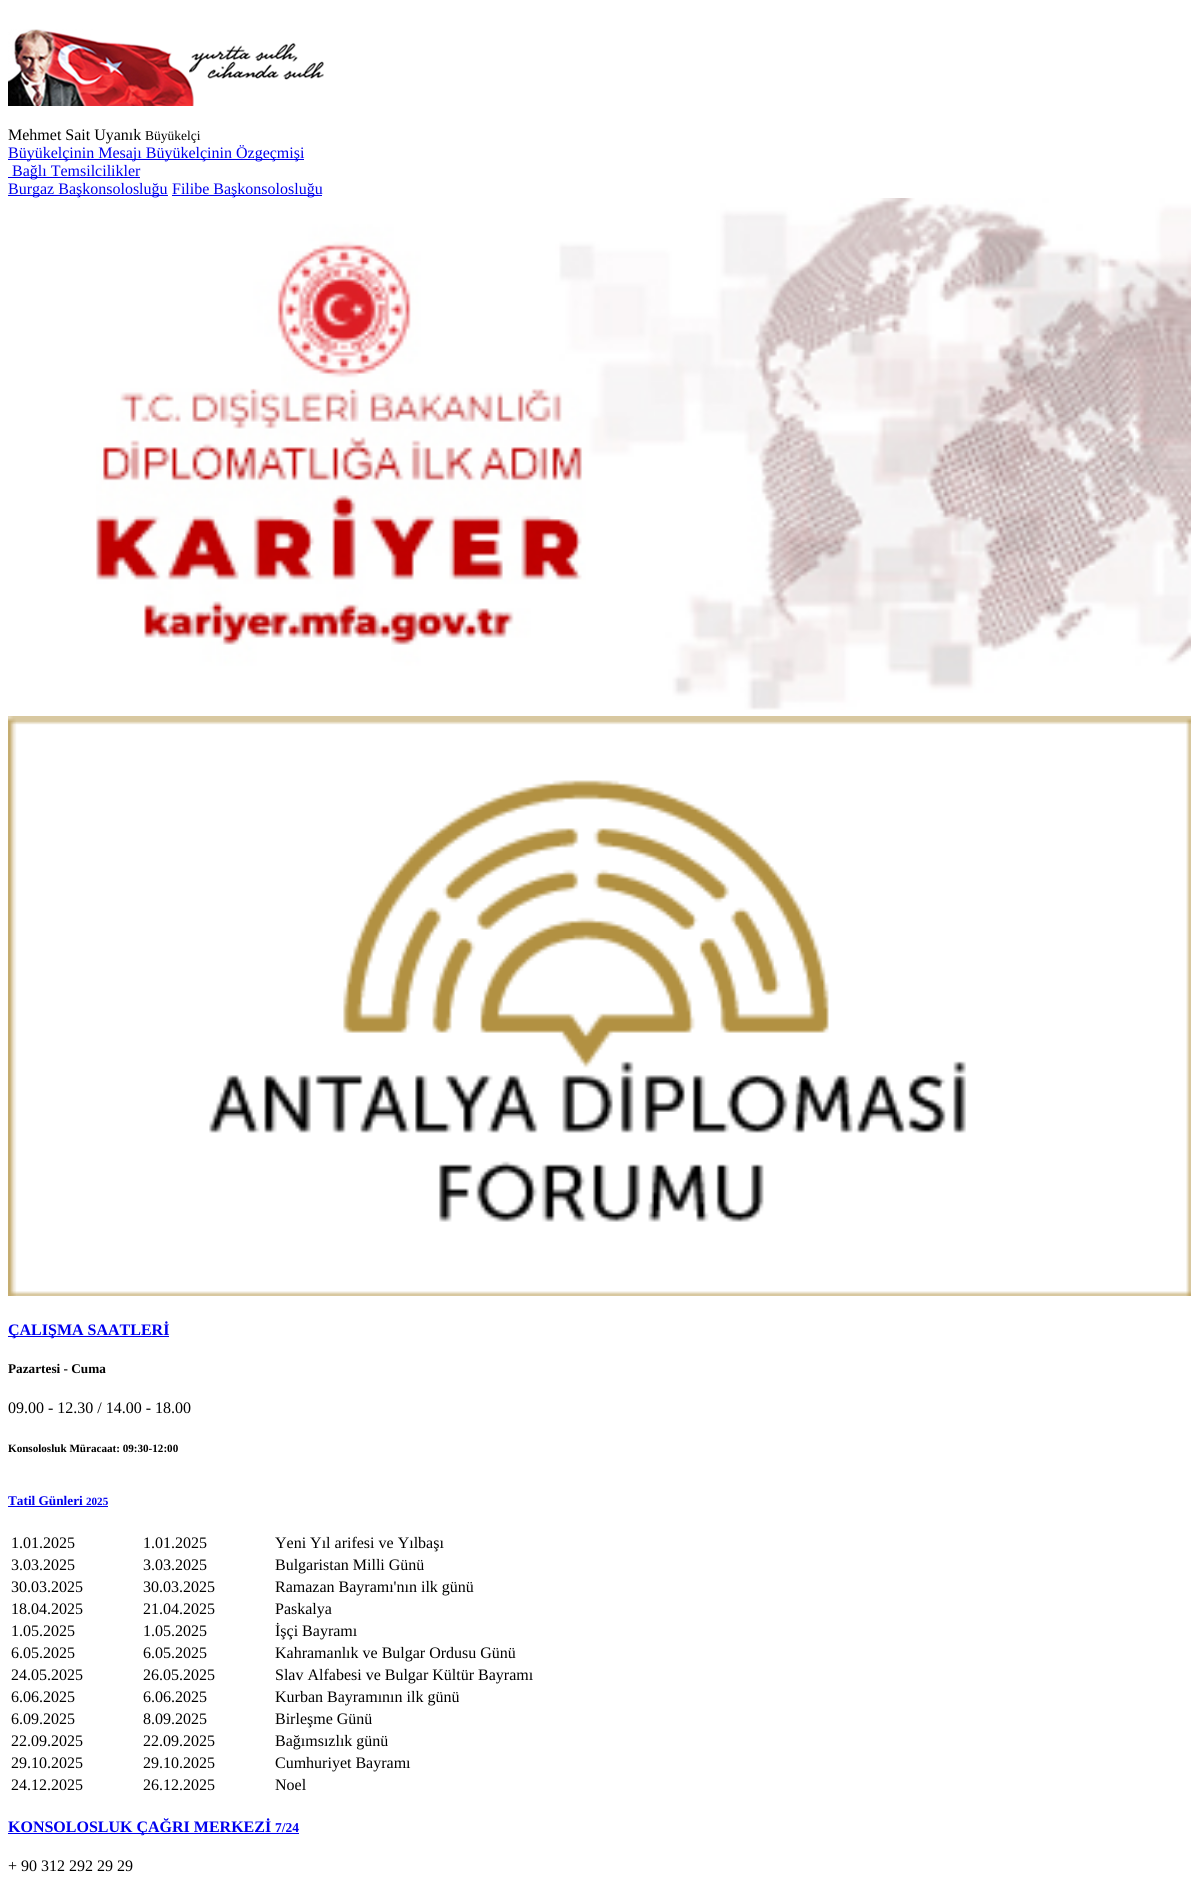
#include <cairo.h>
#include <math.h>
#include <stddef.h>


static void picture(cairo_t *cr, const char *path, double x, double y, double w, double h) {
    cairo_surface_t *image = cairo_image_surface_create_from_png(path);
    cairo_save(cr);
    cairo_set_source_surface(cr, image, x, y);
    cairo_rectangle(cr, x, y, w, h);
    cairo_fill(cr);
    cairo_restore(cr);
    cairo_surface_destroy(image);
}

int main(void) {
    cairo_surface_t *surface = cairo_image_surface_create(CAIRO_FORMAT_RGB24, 1199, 1880);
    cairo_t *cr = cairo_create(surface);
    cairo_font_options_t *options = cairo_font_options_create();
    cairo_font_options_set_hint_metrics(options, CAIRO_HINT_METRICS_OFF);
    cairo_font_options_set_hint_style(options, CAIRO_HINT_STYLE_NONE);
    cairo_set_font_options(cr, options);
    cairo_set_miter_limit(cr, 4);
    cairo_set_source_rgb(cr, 1, 1, 1);
    cairo_paint(cr);
    picture(cr, "img1.png", 8, 29, 316, 77);
    cairo_select_font_face(cr, "Liberation Serif", CAIRO_FONT_SLANT_NORMAL, CAIRO_FONT_WEIGHT_NORMAL);
    cairo_set_font_size(cr, 16);
    cairo_set_source_rgb(cr, 0, 0, 0);
    cairo_move_to(cr, 8, 140);
    cairo_show_text(cr, "Mehmet Sait Uyanık");
    cairo_set_font_size(cr, 13.5);
    cairo_move_to(cr, 145, 140);
    cairo_show_text(cr, "Büyükelçi");
    cairo_set_source_rgb(cr, 0, 0, 0.933);
    cairo_rectangle(cr, 8, 159, 296, 1);
    cairo_fill(cr);
    cairo_set_font_size(cr, 16);
    cairo_move_to(cr, 8, 158);
    cairo_show_text(cr, "Büyükelçinin Mesajı Büyükelçinin Özgeçmişi");
    cairo_rectangle(cr, 8, 177, 132, 1);
    cairo_fill(cr);
    cairo_move_to(cr, 12, 176);
    cairo_show_text(cr, "Bağlı Temsilcilikler");
    cairo_rectangle(cr, 8, 195, 160, 1);
    cairo_fill(cr);
    cairo_move_to(cr, 8, 194);
    cairo_show_text(cr, "Burgaz Başkonsolosluğu");
    cairo_rectangle(cr, 172, 195, 150, 1);
    cairo_fill(cr);
    cairo_move_to(cr, 172, 194);
    cairo_show_text(cr, "Filibe Başkonsolosluğu");
    picture(cr, "img2.png", 96, 198, 1095, 512);
    picture(cr, "img3.png", 8, 716, 1183, 580);
    cairo_rectangle(cr, 8, 1336, 161, 1);
    cairo_fill(cr);
    cairo_select_font_face(cr, "Liberation Serif", CAIRO_FONT_SLANT_NORMAL, CAIRO_FONT_WEIGHT_BOLD);
    cairo_move_to(cr, 8, 1335);
    cairo_show_text(cr, "ÇALIŞMA SAATLERİ");
    cairo_set_font_size(cr, 13.25);
    cairo_set_source_rgb(cr, 0, 0, 0);
    cairo_move_to(cr, 8, 1373);
    cairo_show_text(cr, "Pazartesi - Cuma");
    cairo_select_font_face(cr, "Liberation Serif", CAIRO_FONT_SLANT_NORMAL, CAIRO_FONT_WEIGHT_NORMAL);
    cairo_set_font_size(cr, 16);
    cairo_move_to(cr, 8, 1413);
    cairo_show_text(cr, "09.00 - 12.30 / 14.00 - 18.00");
    cairo_select_font_face(cr, "Liberation Serif", CAIRO_FONT_SLANT_NORMAL, CAIRO_FONT_WEIGHT_BOLD);
    cairo_set_font_size(cr, 11.1);
    cairo_move_to(cr, 8, 1452);
    cairo_show_text(cr, "Konsolosluk Müracaat: 09:30-12:00");
    cairo_set_font_size(cr, 13.25);
    cairo_set_source_rgb(cr, 0, 0, 0.933);
    cairo_move_to(cr, 8, 1505);
    cairo_show_text(cr, "Tatil Günleri");
    cairo_rectangle(cr, 8, 1506, 100, 1);
    cairo_fill(cr);
    cairo_set_font_size(cr, 11.1);
    cairo_move_to(cr, 86, 1505);
    cairo_show_text(cr, "2025");
    cairo_select_font_face(cr, "Liberation Serif", CAIRO_FONT_SLANT_NORMAL, CAIRO_FONT_WEIGHT_NORMAL);
    cairo_set_font_size(cr, 16);
    cairo_set_source_rgb(cr, 0, 0, 0);
    cairo_move_to(cr, 11, 1548);
    cairo_show_text(cr, "1.01.2025");
    cairo_move_to(cr, 143, 1548);
    cairo_show_text(cr, "1.01.2025");
    cairo_move_to(cr, 275, 1548);
    cairo_show_text(cr, "Yeni Yıl arifesi ve Yılbaşı");
    cairo_move_to(cr, 11, 1570);
    cairo_show_text(cr, "3.03.2025");
    cairo_move_to(cr, 143, 1570);
    cairo_show_text(cr, "3.03.2025");
    cairo_move_to(cr, 275, 1570);
    cairo_show_text(cr, "Bulgaristan Milli Günü");
    cairo_move_to(cr, 11, 1592);
    cairo_show_text(cr, "30.03.2025");
    cairo_move_to(cr, 143, 1592);
    cairo_show_text(cr, "30.03.2025");
    cairo_move_to(cr, 275, 1592);
    cairo_show_text(cr, "Ramazan Bayramı'nın ilk günü");
    cairo_move_to(cr, 11, 1614);
    cairo_show_text(cr, "18.04.2025");
    cairo_move_to(cr, 143, 1614);
    cairo_show_text(cr, "21.04.2025");
    cairo_move_to(cr, 275, 1614);
    cairo_show_text(cr, "Paskalya");
    cairo_move_to(cr, 11, 1636);
    cairo_show_text(cr, "1.05.2025");
    cairo_move_to(cr, 143, 1636);
    cairo_show_text(cr, "1.05.2025");
    cairo_move_to(cr, 275, 1636);
    cairo_show_text(cr, "İşçi Bayramı");
    cairo_move_to(cr, 11, 1658);
    cairo_show_text(cr, "6.05.2025");
    cairo_move_to(cr, 143, 1658);
    cairo_show_text(cr, "6.05.2025");
    cairo_move_to(cr, 275, 1658);
    cairo_show_text(cr, "Kahramanlık ve Bulgar Ordusu Günü");
    cairo_move_to(cr, 11, 1680);
    cairo_show_text(cr, "24.05.2025");
    cairo_move_to(cr, 143, 1680);
    cairo_show_text(cr, "26.05.2025");
    cairo_move_to(cr, 275, 1680);
    cairo_show_text(cr, "Slav Alfabesi ve Bulgar Kültür Bayramı");
    cairo_move_to(cr, 11, 1702);
    cairo_show_text(cr, "6.06.2025");
    cairo_move_to(cr, 143, 1702);
    cairo_show_text(cr, "6.06.2025");
    cairo_move_to(cr, 275, 1702);
    cairo_show_text(cr, "Kurban Bayramının ilk günü");
    cairo_move_to(cr, 11, 1724);
    cairo_show_text(cr, "6.09.2025");
    cairo_move_to(cr, 143, 1724);
    cairo_show_text(cr, "8.09.2025");
    cairo_move_to(cr, 275, 1724);
    cairo_show_text(cr, "Birleşme Günü");
    cairo_move_to(cr, 11, 1746);
    cairo_show_text(cr, "22.09.2025");
    cairo_move_to(cr, 143, 1746);
    cairo_show_text(cr, "22.09.2025");
    cairo_move_to(cr, 275, 1746);
    cairo_show_text(cr, "Bağımsızlık günü");
    cairo_move_to(cr, 11, 1768);
    cairo_show_text(cr, "29.10.2025");
    cairo_move_to(cr, 143, 1768);
    cairo_show_text(cr, "29.10.2025");
    cairo_move_to(cr, 275, 1768);
    cairo_show_text(cr, "Cumhuriyet Bayramı");
    cairo_move_to(cr, 11, 1790);
    cairo_show_text(cr, "24.12.2025");
    cairo_move_to(cr, 143, 1790);
    cairo_show_text(cr, "26.12.2025");
    cairo_move_to(cr, 275, 1790);
    cairo_show_text(cr, "Noel");
    cairo_set_source_rgb(cr, 0, 0, 0.933);
    cairo_rectangle(cr, 8, 1833, 291, 1);
    cairo_fill(cr);
    cairo_select_font_face(cr, "Liberation Serif", CAIRO_FONT_SLANT_NORMAL, CAIRO_FONT_WEIGHT_BOLD);
    cairo_move_to(cr, 8, 1832);
    cairo_show_text(cr, "KONSOLOSLUK ÇAĞRI MERKEZİ");
    cairo_set_font_size(cr, 13.5);
    cairo_move_to(cr, 275, 1832);
    cairo_show_text(cr, "7/24");
    cairo_select_font_face(cr, "Liberation Serif", CAIRO_FONT_SLANT_NORMAL, CAIRO_FONT_WEIGHT_NORMAL);
    cairo_set_font_size(cr, 16);
    cairo_set_source_rgb(cr, 0, 0, 0);
    cairo_move_to(cr, 8, 1871);
    cairo_show_text(cr, "+ 90 312 292 29 29");
    cairo_surface_write_to_png(surface, "page.png");
    cairo_font_options_destroy(options);
    cairo_destroy(cr);
    cairo_surface_destroy(surface);
    return 0;
}
